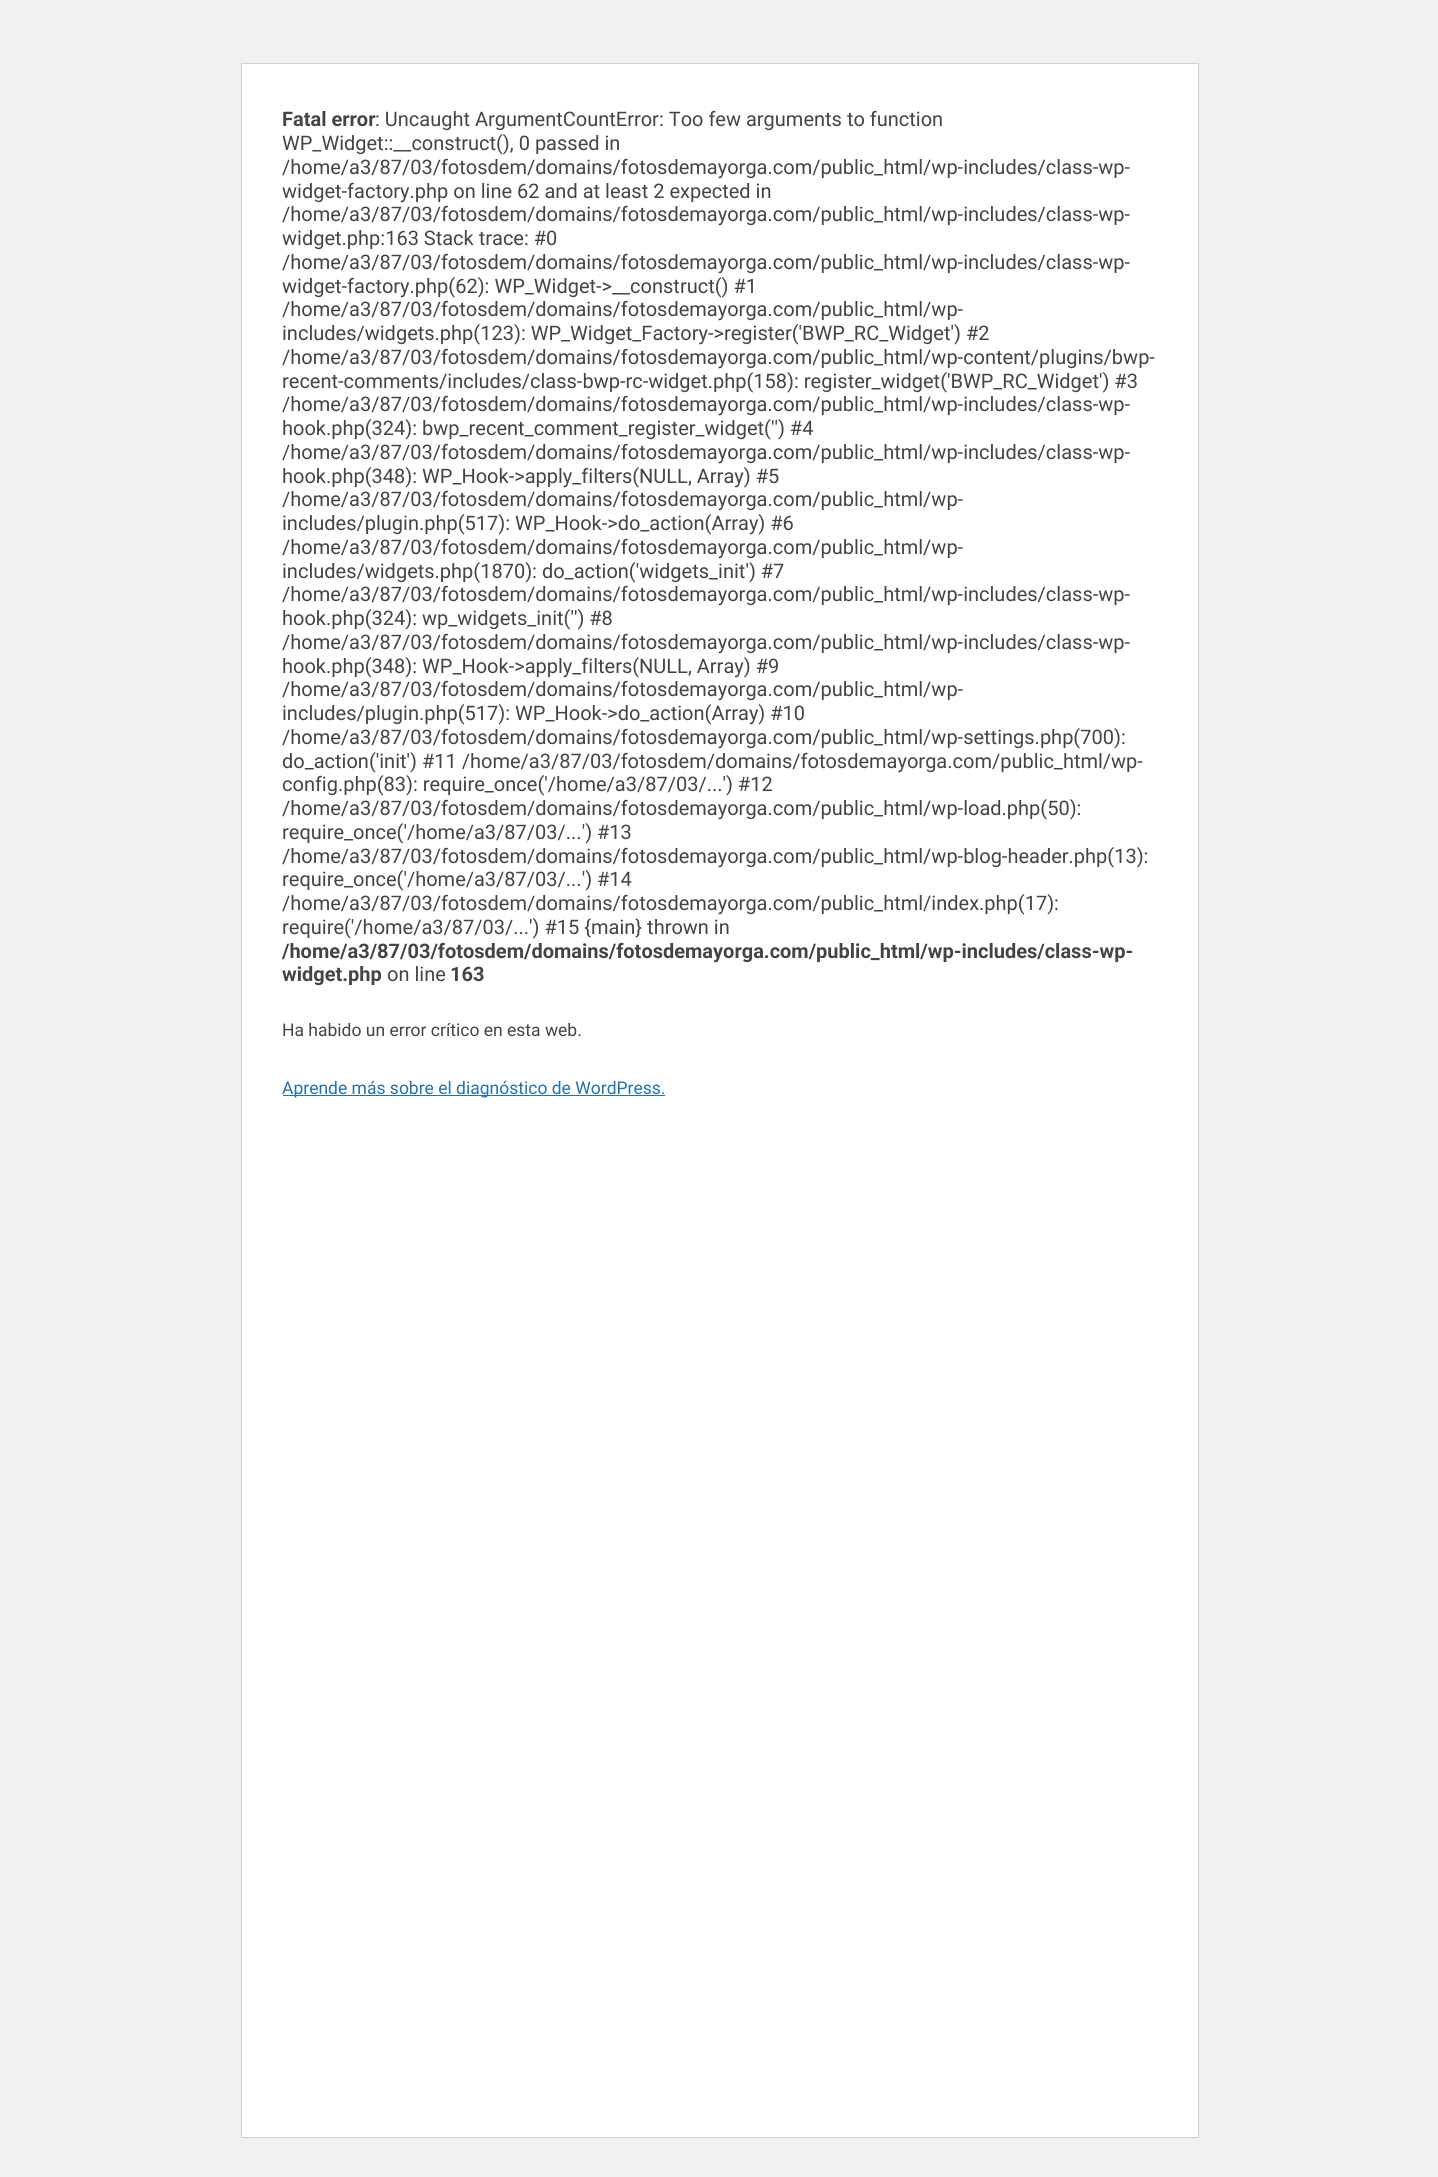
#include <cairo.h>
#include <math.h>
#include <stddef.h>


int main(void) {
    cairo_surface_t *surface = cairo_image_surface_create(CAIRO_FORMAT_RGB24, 1438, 2177);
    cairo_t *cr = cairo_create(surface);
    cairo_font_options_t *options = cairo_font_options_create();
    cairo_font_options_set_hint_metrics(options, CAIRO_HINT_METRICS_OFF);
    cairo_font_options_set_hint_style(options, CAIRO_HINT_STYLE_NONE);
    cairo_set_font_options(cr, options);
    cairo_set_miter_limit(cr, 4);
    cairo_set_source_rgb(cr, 0.945, 0.945, 0.945);
    cairo_paint(cr);
    cairo_set_source_rgb(cr, 1, 1, 1);
    cairo_rectangle(cr, 241.5, 63.5, 957, 2074);
    cairo_fill_preserve(cr);
    cairo_set_source_rgb(cr, 0.8, 0.816, 0.831);
    cairo_set_line_width(cr, 1);
    cairo_stroke(cr);
    cairo_select_font_face(cr, "Roboto", CAIRO_FONT_SLANT_NORMAL, CAIRO_FONT_WEIGHT_BOLD);
    cairo_set_font_size(cr, 20);
    cairo_set_source_rgb(cr, 0.267, 0.267, 0.267);
    cairo_move_to(cr, 282, 126);
    cairo_show_text(cr, "Fatal error");
    cairo_select_font_face(cr, "Roboto", CAIRO_FONT_SLANT_NORMAL, CAIRO_FONT_WEIGHT_NORMAL);
    cairo_move_to(cr, 375, 126);
    cairo_show_text(cr, ": Uncaught ArgumentCountError: Too few arguments to function");
    cairo_move_to(cr, 282, 150);
    cairo_show_text(cr, "WP_Widget::__construct(), 0 passed in");
    cairo_move_to(cr, 282, 174);
    cairo_show_text(cr, "/home/a3/87/03/fotosdem/domains/fotosdemayorga.com/public_html/wp-includes/class-wp-");
    cairo_move_to(cr, 282, 198);
    cairo_show_text(cr, "widget-factory.php on line 62 and at least 2 expected in");
    cairo_move_to(cr, 282, 221);
    cairo_show_text(cr, "/home/a3/87/03/fotosdem/domains/fotosdemayorga.com/public_html/wp-includes/class-wp-");
    cairo_move_to(cr, 282, 245);
    cairo_show_text(cr, "widget.php:163 Stack trace: #0");
    cairo_move_to(cr, 282, 269);
    cairo_show_text(cr, "/home/a3/87/03/fotosdem/domains/fotosdemayorga.com/public_html/wp-includes/class-wp-");
    cairo_move_to(cr, 282, 293);
    cairo_show_text(cr, "widget-factory.php(62): WP_Widget->__construct() #1");
    cairo_move_to(cr, 282, 316);
    cairo_show_text(cr, "/home/a3/87/03/fotosdem/domains/fotosdemayorga.com/public_html/wp-");
    cairo_move_to(cr, 282, 340);
    cairo_show_text(cr, "includes/widgets.php(123): WP_Widget_Factory->register('BWP_RC_Widget') #2");
    cairo_move_to(cr, 282, 364);
    cairo_show_text(cr, "/home/a3/87/03/fotosdem/domains/fotosdemayorga.com/public_html/wp-content/plugins/bwp-");
    cairo_move_to(cr, 282, 388);
    cairo_show_text(cr, "recent-comments/includes/class-bwp-rc-widget.php(158): register_widget('BWP_RC_Widget') #3");
    cairo_move_to(cr, 282, 411);
    cairo_show_text(cr, "/home/a3/87/03/fotosdem/domains/fotosdemayorga.com/public_html/wp-includes/class-wp-");
    cairo_move_to(cr, 282, 435);
    cairo_show_text(cr, "hook.php(324): bwp_recent_comment_register_widget('') #4");
    cairo_move_to(cr, 282, 459);
    cairo_show_text(cr, "/home/a3/87/03/fotosdem/domains/fotosdemayorga.com/public_html/wp-includes/class-wp-");
    cairo_move_to(cr, 282, 483);
    cairo_show_text(cr, "hook.php(348): WP_Hook->apply_filters(NULL, Array) #5");
    cairo_move_to(cr, 282, 506);
    cairo_show_text(cr, "/home/a3/87/03/fotosdem/domains/fotosdemayorga.com/public_html/wp-");
    cairo_move_to(cr, 282, 530);
    cairo_show_text(cr, "includes/plugin.php(517): WP_Hook->do_action(Array) #6");
    cairo_move_to(cr, 282, 554);
    cairo_show_text(cr, "/home/a3/87/03/fotosdem/domains/fotosdemayorga.com/public_html/wp-");
    cairo_move_to(cr, 282, 578);
    cairo_show_text(cr, "includes/widgets.php(1870): do_action('widgets_init') #7");
    cairo_move_to(cr, 282, 601);
    cairo_show_text(cr, "/home/a3/87/03/fotosdem/domains/fotosdemayorga.com/public_html/wp-includes/class-wp-");
    cairo_move_to(cr, 282, 625);
    cairo_show_text(cr, "hook.php(324): wp_widgets_init('') #8");
    cairo_move_to(cr, 282, 649);
    cairo_show_text(cr, "/home/a3/87/03/fotosdem/domains/fotosdemayorga.com/public_html/wp-includes/class-wp-");
    cairo_move_to(cr, 282, 673);
    cairo_show_text(cr, "hook.php(348): WP_Hook->apply_filters(NULL, Array) #9");
    cairo_move_to(cr, 282, 696);
    cairo_show_text(cr, "/home/a3/87/03/fotosdem/domains/fotosdemayorga.com/public_html/wp-");
    cairo_move_to(cr, 282, 720);
    cairo_show_text(cr, "includes/plugin.php(517): WP_Hook->do_action(Array) #10");
    cairo_move_to(cr, 282, 744);
    cairo_show_text(cr, "/home/a3/87/03/fotosdem/domains/fotosdemayorga.com/public_html/wp-settings.php(700):");
    cairo_move_to(cr, 282, 768);
    cairo_show_text(cr, "do_action('init') #11 /home/a3/87/03/fotosdem/domains/fotosdemayorga.com/public_html/wp-");
    cairo_move_to(cr, 282, 791);
    cairo_show_text(cr, "config.php(83): require_once('/home/a3/87/03/...') #12");
    cairo_move_to(cr, 282, 815);
    cairo_show_text(cr, "/home/a3/87/03/fotosdem/domains/fotosdemayorga.com/public_html/wp-load.php(50):");
    cairo_move_to(cr, 282, 839);
    cairo_show_text(cr, "require_once('/home/a3/87/03/...') #13");
    cairo_move_to(cr, 282, 863);
    cairo_show_text(cr, "/home/a3/87/03/fotosdem/domains/fotosdemayorga.com/public_html/wp-blog-header.php(13):");
    cairo_move_to(cr, 282, 886);
    cairo_show_text(cr, "require_once('/home/a3/87/03/...') #14");
    cairo_move_to(cr, 282, 910);
    cairo_show_text(cr, "/home/a3/87/03/fotosdem/domains/fotosdemayorga.com/public_html/index.php(17):");
    cairo_move_to(cr, 282, 934);
    cairo_show_text(cr, "require('/home/a3/87/03/...') #15 {main} thrown in");
    cairo_select_font_face(cr, "Roboto", CAIRO_FONT_SLANT_NORMAL, CAIRO_FONT_WEIGHT_BOLD);
    cairo_move_to(cr, 282, 958);
    cairo_show_text(cr, "/home/a3/87/03/fotosdem/domains/fotosdemayorga.com/public_html/wp-includes/class-wp-");
    cairo_move_to(cr, 282, 981);
    cairo_show_text(cr, "widget.php");
    cairo_select_font_face(cr, "Roboto", CAIRO_FONT_SLANT_NORMAL, CAIRO_FONT_WEIGHT_NORMAL);
    cairo_move_to(cr, 387, 981);
    cairo_show_text(cr, "on line");
    cairo_select_font_face(cr, "Roboto", CAIRO_FONT_SLANT_NORMAL, CAIRO_FONT_WEIGHT_BOLD);
    cairo_move_to(cr, 450, 981);
    cairo_show_text(cr, "163");
    cairo_select_font_face(cr, "Roboto", CAIRO_FONT_SLANT_NORMAL, CAIRO_FONT_WEIGHT_NORMAL);
    cairo_set_font_size(cr, 17.5);
    cairo_move_to(cr, 282, 1036);
    cairo_show_text(cr, "Ha habido un error crítico en esta web.");
    cairo_set_source_rgb(cr, 0.133, 0.443, 0.694);
    cairo_rectangle(cr, 283, 1095, 382, 1);
    cairo_fill(cr);
    cairo_move_to(cr, 282, 1094);
    cairo_show_text(cr, "Aprende más sobre el diagnóstico de WordPress.");
    cairo_surface_write_to_png(surface, "page.png");
    cairo_font_options_destroy(options);
    cairo_destroy(cr);
    cairo_surface_destroy(surface);
    return 0;
}
